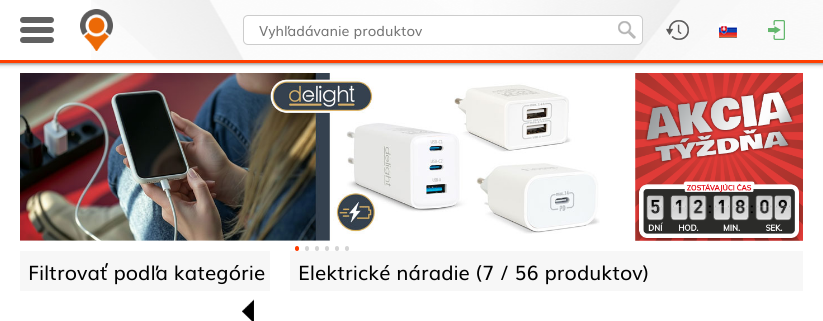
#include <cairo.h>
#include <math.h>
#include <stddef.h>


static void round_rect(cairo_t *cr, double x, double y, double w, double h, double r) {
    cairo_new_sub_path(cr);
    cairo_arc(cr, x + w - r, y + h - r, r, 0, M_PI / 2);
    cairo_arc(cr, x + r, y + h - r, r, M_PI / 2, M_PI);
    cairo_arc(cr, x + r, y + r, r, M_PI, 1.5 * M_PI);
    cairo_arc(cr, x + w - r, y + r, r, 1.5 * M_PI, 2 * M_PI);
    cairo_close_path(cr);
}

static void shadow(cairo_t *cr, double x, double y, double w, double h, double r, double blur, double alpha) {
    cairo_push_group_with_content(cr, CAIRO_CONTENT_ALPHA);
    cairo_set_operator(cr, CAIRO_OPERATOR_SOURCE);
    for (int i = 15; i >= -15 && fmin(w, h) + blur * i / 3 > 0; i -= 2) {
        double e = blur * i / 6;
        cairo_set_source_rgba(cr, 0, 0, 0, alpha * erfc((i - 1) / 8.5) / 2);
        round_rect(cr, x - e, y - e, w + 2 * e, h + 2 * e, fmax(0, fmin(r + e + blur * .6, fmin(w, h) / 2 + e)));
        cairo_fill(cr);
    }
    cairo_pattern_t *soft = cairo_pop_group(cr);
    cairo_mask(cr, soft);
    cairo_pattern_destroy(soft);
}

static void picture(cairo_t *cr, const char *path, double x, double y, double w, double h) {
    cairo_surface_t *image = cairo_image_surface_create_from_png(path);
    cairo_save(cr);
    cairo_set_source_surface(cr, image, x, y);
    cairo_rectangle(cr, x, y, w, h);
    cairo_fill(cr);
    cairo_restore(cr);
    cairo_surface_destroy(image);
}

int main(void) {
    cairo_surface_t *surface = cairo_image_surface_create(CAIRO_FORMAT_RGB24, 823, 321);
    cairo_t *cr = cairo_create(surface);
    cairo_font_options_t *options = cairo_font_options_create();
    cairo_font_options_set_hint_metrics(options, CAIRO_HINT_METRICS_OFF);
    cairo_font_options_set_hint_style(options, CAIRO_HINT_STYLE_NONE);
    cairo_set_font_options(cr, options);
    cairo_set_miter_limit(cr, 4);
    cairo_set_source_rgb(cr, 1, 1, 1);
    cairo_paint(cr);
    cairo_set_source_rgb(cr, 0, 0, 0);
    shadow(cr, -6, -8, 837, 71, 0, 2.5, 0.75);
    cairo_set_source_rgb(cr, 1, 1, 1);
    cairo_rectangle(cr, 0, 0, 91, 60);
    cairo_fill(cr);
    picture(cr, "img1.png", 91, 0, 732, 60);
    cairo_set_source_rgb(cr, 1, 0.247, 0);
    cairo_rectangle(cr, 0, 60, 823, 3);
    cairo_fill(cr);
    cairo_set_source_rgb(cr, 0.38, 0.38, 0.38);
    round_rect(cr, 20, 17, 34, 6, 3);
    cairo_fill(cr);
    round_rect(cr, 20, 27, 34, 6, 3);
    cairo_fill(cr);
    round_rect(cr, 20, 37, 34, 6, 3);
    cairo_fill(cr);
    picture(cr, "img2.png", 80, 9, 33, 42);
    cairo_set_source_rgb(cr, 1, 1, 1);
    round_rect(cr, 243.5, 15.5, 399, 29, 4.5);
    cairo_fill_preserve(cr);
    cairo_set_source_rgb(cr, 0.8, 0.8, 0.8);
    cairo_set_line_width(cr, 1);
    cairo_stroke(cr);
    cairo_select_font_face(cr, "Muli", CAIRO_FONT_SLANT_NORMAL, CAIRO_FONT_WEIGHT_NORMAL);
    cairo_set_font_size(cr, 14);
    cairo_set_source_rgb(cr, 0.459, 0.459, 0.459);
    cairo_move_to(cr, 259, 36);
    cairo_show_text(cr, "Vyhľadávanie produktov");
    picture(cr, "img3.png", 618, 21, 18, 18);
    picture(cr, "img4.png", 666, 20, 23, 20);
    picture(cr, "img5.png", 719, 23, 18, 15);
    picture(cr, "img6.png", 768, 20, 17, 20);
    picture(cr, "img7.png", 20, 73, 580, 168);
    cairo_set_source_rgb(cr, 1, 0.235, 0);
    round_rect(cr, 295, 246, 4, 5, 2);
    cairo_fill(cr);
    cairo_set_source_rgb(cr, 0.831, 0.831, 0.831);
    round_rect(cr, 305, 246, 4, 5, 2);
    cairo_fill(cr);
    round_rect(cr, 315, 246, 4, 5, 2);
    cairo_fill(cr);
    round_rect(cr, 325, 246, 4, 5, 2);
    cairo_fill(cr);
    round_rect(cr, 335, 246, 4, 5, 2);
    cairo_fill(cr);
    round_rect(cr, 345, 246, 4, 5, 2);
    cairo_fill(cr);
    picture(cr, "img8.png", 635, 73, 168, 168);
    picture(cr, "img9.png", 646, 195, 18, 26);
    picture(cr, "img10.png", 670, 195, 18, 26);
    picture(cr, "img11.png", 689, 195, 18, 26);
    cairo_select_font_face(cr, "Muli", CAIRO_FONT_SLANT_NORMAL, CAIRO_FONT_WEIGHT_BOLD);
    cairo_set_font_size(cr, 13);
    cairo_set_source_rgb(cr, 0, 0, 0);
    cairo_move_to(cr, 708, 213);
    cairo_show_text(cr, ":");
    picture(cr, "img12.png", 713, 195, 18, 26);
    picture(cr, "img13.png", 731, 195, 19, 26);
    cairo_move_to(cr, 750, 213);
    cairo_show_text(cr, ":");
    picture(cr, "img14.png", 755, 195, 19, 26);
    picture(cr, "img15.png", 773, 195, 19, 26);
    cairo_set_source_rgb(cr, 0.965, 0.965, 0.965);
    cairo_rectangle(cr, 20, 251, 250, 40);
    cairo_fill(cr);
    cairo_select_font_face(cr, "Muli", CAIRO_FONT_SLANT_NORMAL, CAIRO_FONT_WEIGHT_NORMAL);
    cairo_set_font_size(cr, 20);
    cairo_set_source_rgb(cr, 0, 0, 0);
    cairo_move_to(cr, 28, 280);
    cairo_show_text(cr, "Filtrovať podľa kategórie");
    picture(cr, "img16.png", 242, 299, 12, 22);
    cairo_set_source_rgb(cr, 0.965, 0.965, 0.965);
    cairo_rectangle(cr, 290, 251, 513, 40);
    cairo_fill(cr);
    cairo_set_source_rgb(cr, 0, 0, 0);
    cairo_move_to(cr, 298, 280);
    cairo_show_text(cr, "Elektrické náradie (7 / 56 produktov)");
    cairo_surface_write_to_png(surface, "page.png");
    cairo_font_options_destroy(options);
    cairo_destroy(cr);
    cairo_surface_destroy(surface);
    return 0;
}
